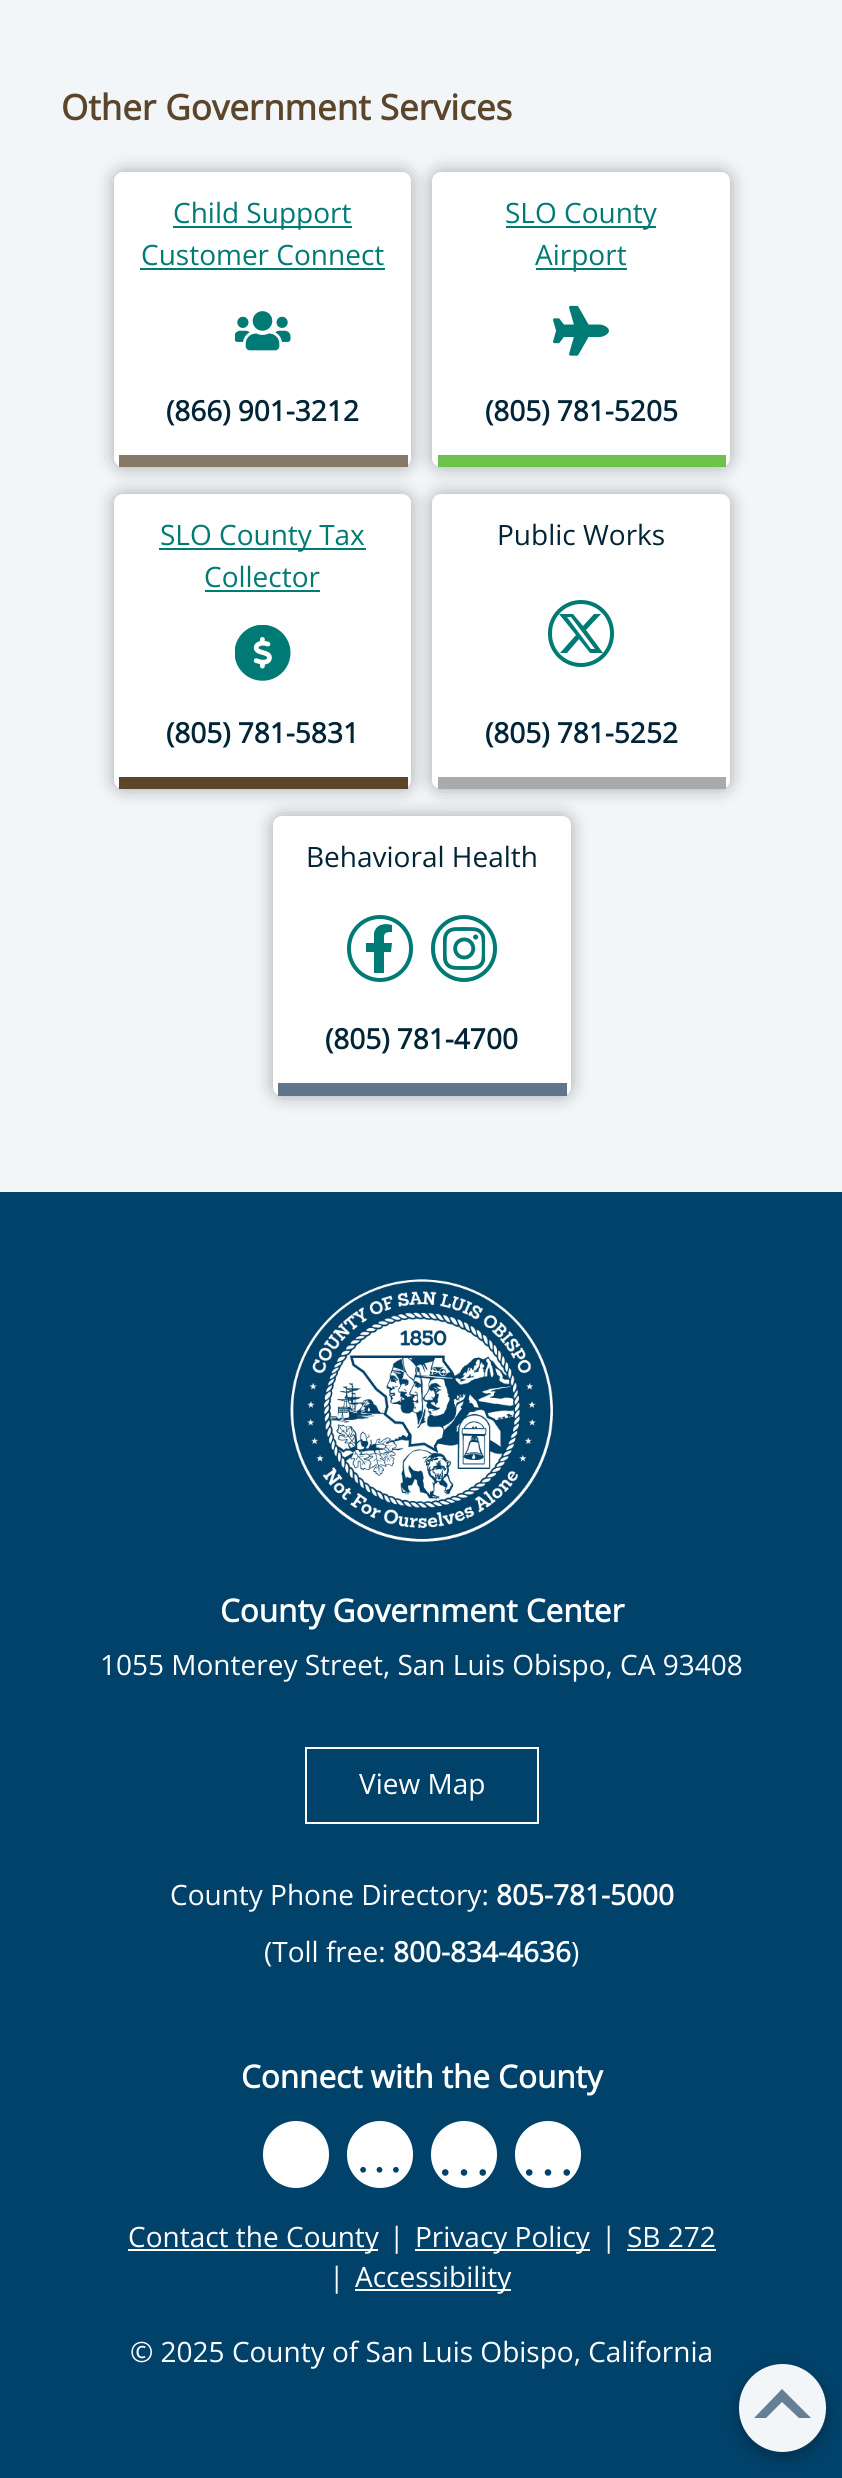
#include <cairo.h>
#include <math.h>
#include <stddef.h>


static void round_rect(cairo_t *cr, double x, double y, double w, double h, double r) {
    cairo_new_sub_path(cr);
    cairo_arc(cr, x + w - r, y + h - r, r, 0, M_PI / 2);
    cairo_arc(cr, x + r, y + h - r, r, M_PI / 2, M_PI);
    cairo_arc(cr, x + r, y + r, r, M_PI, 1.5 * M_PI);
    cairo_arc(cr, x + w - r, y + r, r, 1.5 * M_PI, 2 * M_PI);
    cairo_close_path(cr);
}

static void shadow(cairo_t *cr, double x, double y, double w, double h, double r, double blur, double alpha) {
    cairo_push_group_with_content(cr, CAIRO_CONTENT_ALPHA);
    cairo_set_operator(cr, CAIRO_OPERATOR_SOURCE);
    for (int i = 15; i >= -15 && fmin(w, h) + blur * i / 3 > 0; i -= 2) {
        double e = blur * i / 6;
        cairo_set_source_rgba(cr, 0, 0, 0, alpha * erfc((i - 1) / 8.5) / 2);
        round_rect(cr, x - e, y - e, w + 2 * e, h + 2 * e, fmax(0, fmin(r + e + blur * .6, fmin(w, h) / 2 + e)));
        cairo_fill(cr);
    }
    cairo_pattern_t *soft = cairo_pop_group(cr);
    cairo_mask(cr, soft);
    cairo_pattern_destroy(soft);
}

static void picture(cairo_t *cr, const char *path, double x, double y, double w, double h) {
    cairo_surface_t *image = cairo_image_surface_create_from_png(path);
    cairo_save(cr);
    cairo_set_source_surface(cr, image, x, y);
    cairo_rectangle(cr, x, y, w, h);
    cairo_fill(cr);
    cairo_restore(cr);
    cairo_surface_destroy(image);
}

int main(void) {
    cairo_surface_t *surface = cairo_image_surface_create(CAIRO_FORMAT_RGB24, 842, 2478);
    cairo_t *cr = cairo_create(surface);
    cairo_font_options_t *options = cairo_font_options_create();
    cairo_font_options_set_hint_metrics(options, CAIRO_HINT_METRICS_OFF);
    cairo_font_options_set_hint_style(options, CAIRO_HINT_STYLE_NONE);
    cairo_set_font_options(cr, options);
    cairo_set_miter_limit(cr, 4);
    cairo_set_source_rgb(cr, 0.949, 0.961, 0.969);
    cairo_paint(cr);
    cairo_select_font_face(cr, "Open Sans", CAIRO_FONT_SLANT_NORMAL, CAIRO_FONT_WEIGHT_BOLD);
    cairo_set_font_size(cr, 35);
    cairo_set_source_rgb(cr, 0.361, 0.275, 0.169);
    cairo_move_to(cr, 61, 120);
    cairo_show_text(cr, "Other Government Services");
    cairo_set_source_rgb(cr, 0, 0, 0);
    shadow(cr, 114, 172, 297, 295, 9, 9, 0.32);
    cairo_set_source_rgb(cr, 1, 1, 1);
    round_rect(cr, 114, 172, 297, 295, 9);
    cairo_fill(cr);
    cairo_set_source_rgb(cr, 0.529, 0.475, 0.404);
    cairo_rectangle(cr, 119, 455, 289, 12);
    cairo_fill(cr);
    cairo_set_source_rgb(cr, 0, 0.478, 0.455);
    cairo_rectangle(cr, 173, 226, 179, 2);
    cairo_fill(cr);
    cairo_select_font_face(cr, "Open Sans", CAIRO_FONT_SLANT_NORMAL, CAIRO_FONT_WEIGHT_NORMAL);
    cairo_set_font_size(cr, 28);
    cairo_move_to(cr, 173, 223);
    cairo_show_text(cr, "Child Support");
    cairo_move_to(cr, 141, 265);
    cairo_show_text(cr, "Customer Connect");
    cairo_rectangle(cr, 140, 268, 245, 2);
    cairo_fill(cr);
    picture(cr, "img1.png", 235, 311, 56, 40);
    cairo_select_font_face(cr, "Open Sans", CAIRO_FONT_SLANT_NORMAL, CAIRO_FONT_WEIGHT_BOLD);
    cairo_set_source_rgb(cr, 0.004, 0.145, 0.216);
    cairo_move_to(cr, 166, 421);
    cairo_show_text(cr, "(866) 901-3212");
    cairo_set_source_rgb(cr, 0, 0, 0);
    shadow(cr, 432, 172, 298, 295, 9, 9, 0.32);
    cairo_set_source_rgb(cr, 1, 1, 1);
    round_rect(cr, 432, 172, 298, 295, 9);
    cairo_fill(cr);
    cairo_set_source_rgb(cr, 0.424, 0.761, 0.29);
    cairo_rectangle(cr, 438, 455, 288, 12);
    cairo_fill(cr);
    cairo_set_source_rgb(cr, 0, 0.478, 0.455);
    cairo_rectangle(cr, 506, 226, 150, 2);
    cairo_fill(cr);
    cairo_select_font_face(cr, "Open Sans", CAIRO_FONT_SLANT_NORMAL, CAIRO_FONT_WEIGHT_NORMAL);
    cairo_move_to(cr, 505, 223);
    cairo_show_text(cr, "SLO County");
    cairo_rectangle(cr, 536, 268, 91, 2);
    cairo_fill(cr);
    cairo_move_to(cr, 535, 265);
    cairo_show_text(cr, "Airport");
    picture(cr, "img2.png", 553, 305, 56, 51);
    cairo_select_font_face(cr, "Open Sans", CAIRO_FONT_SLANT_NORMAL, CAIRO_FONT_WEIGHT_BOLD);
    cairo_set_source_rgb(cr, 0.004, 0.145, 0.216);
    cairo_move_to(cr, 485, 421);
    cairo_show_text(cr, "(805) 781-5205");
    cairo_set_source_rgb(cr, 0, 0, 0);
    shadow(cr, 114, 494, 297, 295, 9, 9, 0.32);
    cairo_set_source_rgb(cr, 1, 1, 1);
    round_rect(cr, 114, 494, 297, 295, 9);
    cairo_fill(cr);
    cairo_set_source_rgb(cr, 0.361, 0.275, 0.169);
    cairo_rectangle(cr, 119, 777, 289, 12);
    cairo_fill(cr);
    cairo_set_source_rgb(cr, 0, 0.478, 0.455);
    cairo_rectangle(cr, 159, 548, 207, 2);
    cairo_fill(cr);
    cairo_select_font_face(cr, "Open Sans", CAIRO_FONT_SLANT_NORMAL, CAIRO_FONT_WEIGHT_NORMAL);
    cairo_move_to(cr, 160, 545);
    cairo_show_text(cr, "SLO County Tax");
    cairo_move_to(cr, 204, 587);
    cairo_show_text(cr, "Collector");
    cairo_rectangle(cr, 205, 590, 115, 2);
    cairo_fill(cr);
    picture(cr, "img3.png", 235, 625, 56, 56);
    cairo_select_font_face(cr, "Open Sans", CAIRO_FONT_SLANT_NORMAL, CAIRO_FONT_WEIGHT_BOLD);
    cairo_set_source_rgb(cr, 0.004, 0.145, 0.216);
    cairo_move_to(cr, 166, 743);
    cairo_show_text(cr, "(805) 781-5831");
    cairo_set_source_rgb(cr, 0, 0, 0);
    shadow(cr, 432, 494, 298, 295, 9, 9, 0.32);
    cairo_set_source_rgb(cr, 1, 1, 1);
    round_rect(cr, 432, 494, 298, 295, 9);
    cairo_fill(cr);
    cairo_set_source_rgb(cr, 0.667, 0.667, 0.667);
    cairo_rectangle(cr, 438, 777, 288, 12);
    cairo_fill(cr);
    cairo_select_font_face(cr, "Open Sans", CAIRO_FONT_SLANT_NORMAL, CAIRO_FONT_WEIGHT_NORMAL);
    cairo_set_source_rgb(cr, 0.004, 0.145, 0.216);
    cairo_move_to(cr, 497, 545);
    cairo_show_text(cr, "Public Works");
    round_rect(cr, 550, 602, 62, 63, 31);
    cairo_set_source_rgb(cr, 0, 0.478, 0.455);
    cairo_set_line_width(cr, 4);
    cairo_stroke(cr);
    cairo_new_path(cr);
    cairo_move_to(cr, 594, 614);
    cairo_line_to(cr, 601, 614);
    cairo_line_to(cr, 586, 630);
    cairo_line_to(cr, 603, 653);
    cairo_line_to(cr, 590, 653);
    cairo_line_to(cr, 579, 639);
    cairo_line_to(cr, 567, 653);
    cairo_line_to(cr, 560, 653);
    cairo_line_to(cr, 576, 635);
    cairo_line_to(cr, 559, 614);
    cairo_line_to(cr, 573, 614);
    cairo_line_to(cr, 583, 626);
    cairo_close_path(cr);
    cairo_move_to(cr, 591, 649);
    cairo_line_to(cr, 595, 649);
    cairo_line_to(cr, 571, 617);
    cairo_line_to(cr, 567, 617);
    cairo_close_path(cr);
    cairo_fill(cr);
    cairo_select_font_face(cr, "Open Sans", CAIRO_FONT_SLANT_NORMAL, CAIRO_FONT_WEIGHT_BOLD);
    cairo_set_source_rgb(cr, 0.004, 0.145, 0.216);
    cairo_move_to(cr, 485, 743);
    cairo_show_text(cr, "(805) 781-5252");
    cairo_set_source_rgb(cr, 0, 0, 0);
    shadow(cr, 273, 816, 298, 280, 9, 9, 0.32);
    cairo_set_source_rgb(cr, 1, 1, 1);
    round_rect(cr, 273, 816, 298, 280, 9);
    cairo_fill(cr);
    cairo_set_source_rgb(cr, 0.373, 0.463, 0.549);
    cairo_rectangle(cr, 278, 1083, 289, 13);
    cairo_fill(cr);
    cairo_select_font_face(cr, "Open Sans", CAIRO_FONT_SLANT_NORMAL, CAIRO_FONT_WEIGHT_NORMAL);
    cairo_set_source_rgb(cr, 0.004, 0.145, 0.216);
    cairo_move_to(cr, 306, 867);
    cairo_show_text(cr, "Behavioral Health");
    round_rect(cr, 349, 917, 62, 63, 31);
    cairo_set_source_rgb(cr, 0, 0.478, 0.455);
    cairo_stroke(cr);
    cairo_new_path(cr);
    cairo_move_to(cr, 391, 952);
    cairo_line_to(cr, 392, 943);
    cairo_line_to(cr, 384, 943);
    cairo_curve_to(cr, 384, 934, 383, 932, 392, 932);
    cairo_line_to(cr, 392, 925);
    cairo_curve_to(cr, 385, 923, 376, 924, 374, 933);
    cairo_line_to(cr, 374, 943);
    cairo_line_to(cr, 366, 943);
    cairo_line_to(cr, 366, 952);
    cairo_line_to(cr, 374, 952);
    cairo_line_to(cr, 374, 973);
    cairo_line_to(cr, 384, 973);
    cairo_line_to(cr, 384, 952);
    cairo_close_path(cr);
    cairo_fill(cr);
    round_rect(cr, 433, 917, 62, 63, 31);
    cairo_stroke(cr);
    picture(cr, "img4.png", 443, 927, 42, 43);
    cairo_select_font_face(cr, "Open Sans", CAIRO_FONT_SLANT_NORMAL, CAIRO_FONT_WEIGHT_BOLD);
    cairo_set_source_rgb(cr, 0.004, 0.145, 0.216);
    cairo_move_to(cr, 325, 1049);
    cairo_show_text(cr, "(805) 781-4700");
    cairo_set_source_rgb(cr, 0.004, 0.259, 0.416);
    cairo_rectangle(cr, 0, 1192, 842, 1286);
    cairo_fill(cr);
    picture(cr, "img5.png", 290, 1279, 263, 263);
    cairo_set_font_size(cr, 31.5);
    cairo_set_source_rgb(cr, 1, 1, 1);
    cairo_move_to(cr, 220, 1622);
    cairo_show_text(cr, "County Government Center");
    cairo_select_font_face(cr, "Open Sans", CAIRO_FONT_SLANT_NORMAL, CAIRO_FONT_WEIGHT_NORMAL);
    cairo_set_font_size(cr, 28);
    cairo_move_to(cr, 100, 1675);
    cairo_show_text(cr, "1055 Monterey Street, San Luis Obispo, CA 93408");
    cairo_rectangle(cr, 306, 1748, 232, 75);
    cairo_set_line_width(cr, 2);
    cairo_stroke(cr);
    cairo_move_to(cr, 359, 1794);
    cairo_show_text(cr, "View Map");
    cairo_move_to(cr, 170, 1905);
    cairo_show_text(cr, "County Phone Directory:");
    cairo_select_font_face(cr, "Open Sans", CAIRO_FONT_SLANT_NORMAL, CAIRO_FONT_WEIGHT_BOLD);
    cairo_move_to(cr, 496, 1905);
    cairo_show_text(cr, "805-781-5000");
    cairo_select_font_face(cr, "Open Sans", CAIRO_FONT_SLANT_NORMAL, CAIRO_FONT_WEIGHT_NORMAL);
    cairo_move_to(cr, 264, 1962);
    cairo_show_text(cr, "(Toll free:");
    cairo_select_font_face(cr, "Open Sans", CAIRO_FONT_SLANT_NORMAL, CAIRO_FONT_WEIGHT_BOLD);
    cairo_move_to(cr, 393, 1962);
    cairo_show_text(cr, "800-834-4636");
    cairo_select_font_face(cr, "Open Sans", CAIRO_FONT_SLANT_NORMAL, CAIRO_FONT_WEIGHT_NORMAL);
    cairo_move_to(cr, 571, 1962);
    cairo_show_text(cr, ")");
    cairo_select_font_face(cr, "Open Sans", CAIRO_FONT_SLANT_NORMAL, CAIRO_FONT_WEIGHT_BOLD);
    cairo_set_font_size(cr, 31.5);
    cairo_move_to(cr, 241, 2088);
    cairo_show_text(cr, "Connect with the County");
    round_rect(cr, 265, 2123, 62, 63, 31);
    cairo_fill_preserve(cr);
    cairo_set_line_width(cr, 4);
    cairo_stroke(cr);
    round_rect(cr, 349, 2123, 62, 63, 31);
    cairo_fill_preserve(cr);
    cairo_stroke(cr);
    cairo_select_font_face(cr, "Liberation Serif", CAIRO_FONT_SLANT_NORMAL, CAIRO_FONT_WEIGHT_NORMAL);
    cairo_set_font_size(cr, 49);
    cairo_set_source_rgb(cr, 0.004, 0.259, 0.416);
    cairo_move_to(cr, 355, 2172);
    cairo_show_text(cr, "…");
    cairo_set_source_rgb(cr, 1, 1, 1);
    round_rect(cr, 433, 2123, 62, 63, 31);
    cairo_fill_preserve(cr);
    cairo_stroke(cr);
    cairo_set_font_size(cr, 56);
    cairo_set_source_rgb(cr, 0.004, 0.259, 0.416);
    cairo_move_to(cr, 436, 2175);
    cairo_show_text(cr, "…");
    cairo_set_source_rgb(cr, 1, 1, 1);
    round_rect(cr, 517, 2123, 62, 63, 31);
    cairo_fill_preserve(cr);
    cairo_stroke(cr);
    cairo_set_source_rgb(cr, 0.004, 0.259, 0.416);
    cairo_move_to(cr, 520, 2175);
    cairo_show_text(cr, "…");
    cairo_set_source_rgb(cr, 1, 1, 1);
    cairo_rectangle(cr, 128, 2249, 250, 2);
    cairo_fill(cr);
    cairo_select_font_face(cr, "Open Sans", CAIRO_FONT_SLANT_NORMAL, CAIRO_FONT_WEIGHT_NORMAL);
    cairo_set_font_size(cr, 28);
    cairo_move_to(cr, 128, 2247);
    cairo_show_text(cr, "Contact the County");
    cairo_move_to(cr, 389, 2247);
    cairo_show_text(cr, "|");
    cairo_rectangle(cr, 415, 2249, 175, 2);
    cairo_fill(cr);
    cairo_move_to(cr, 415, 2247);
    cairo_show_text(cr, "Privacy Policy");
    cairo_move_to(cr, 601, 2247);
    cairo_show_text(cr, "|");
    cairo_move_to(cr, 627, 2247);
    cairo_show_text(cr, "SB 272");
    cairo_rectangle(cr, 627, 2249, 89, 2);
    cairo_fill(cr);
    cairo_move_to(cr, 329, 2287);
    cairo_show_text(cr, "|");
    cairo_rectangle(cr, 355, 2289, 156, 2);
    cairo_fill(cr);
    cairo_move_to(cr, 355, 2287);
    cairo_show_text(cr, "Accessibility");
    cairo_move_to(cr, 130, 2362);
    cairo_show_text(cr, "© 2025 County of San Luis Obispo, California");
    cairo_set_source_rgb(cr, 0, 0, 0);
    shadow(cr, 739, 2370, 87, 87, 43.5, 8, 0.3);
    cairo_set_source_rgb(cr, 0.949, 0.961, 0.969);
    round_rect(cr, 739, 2364, 87, 88, 43.5);
    cairo_fill(cr);
    cairo_set_source_rgb(cr, 0.4, 0.498, 0.584);
    cairo_new_path(cr);
    cairo_move_to(cr, 782, 2402);
    cairo_line_to(cr, 799, 2418);
    cairo_line_to(cr, 811, 2418);
    cairo_line_to(cr, 782, 2389);
    cairo_line_to(cr, 754, 2418);
    cairo_line_to(cr, 766, 2418);
    cairo_close_path(cr);
    cairo_fill(cr);
    cairo_surface_write_to_png(surface, "page.png");
    cairo_font_options_destroy(options);
    cairo_destroy(cr);
    cairo_surface_destroy(surface);
    return 0;
}
